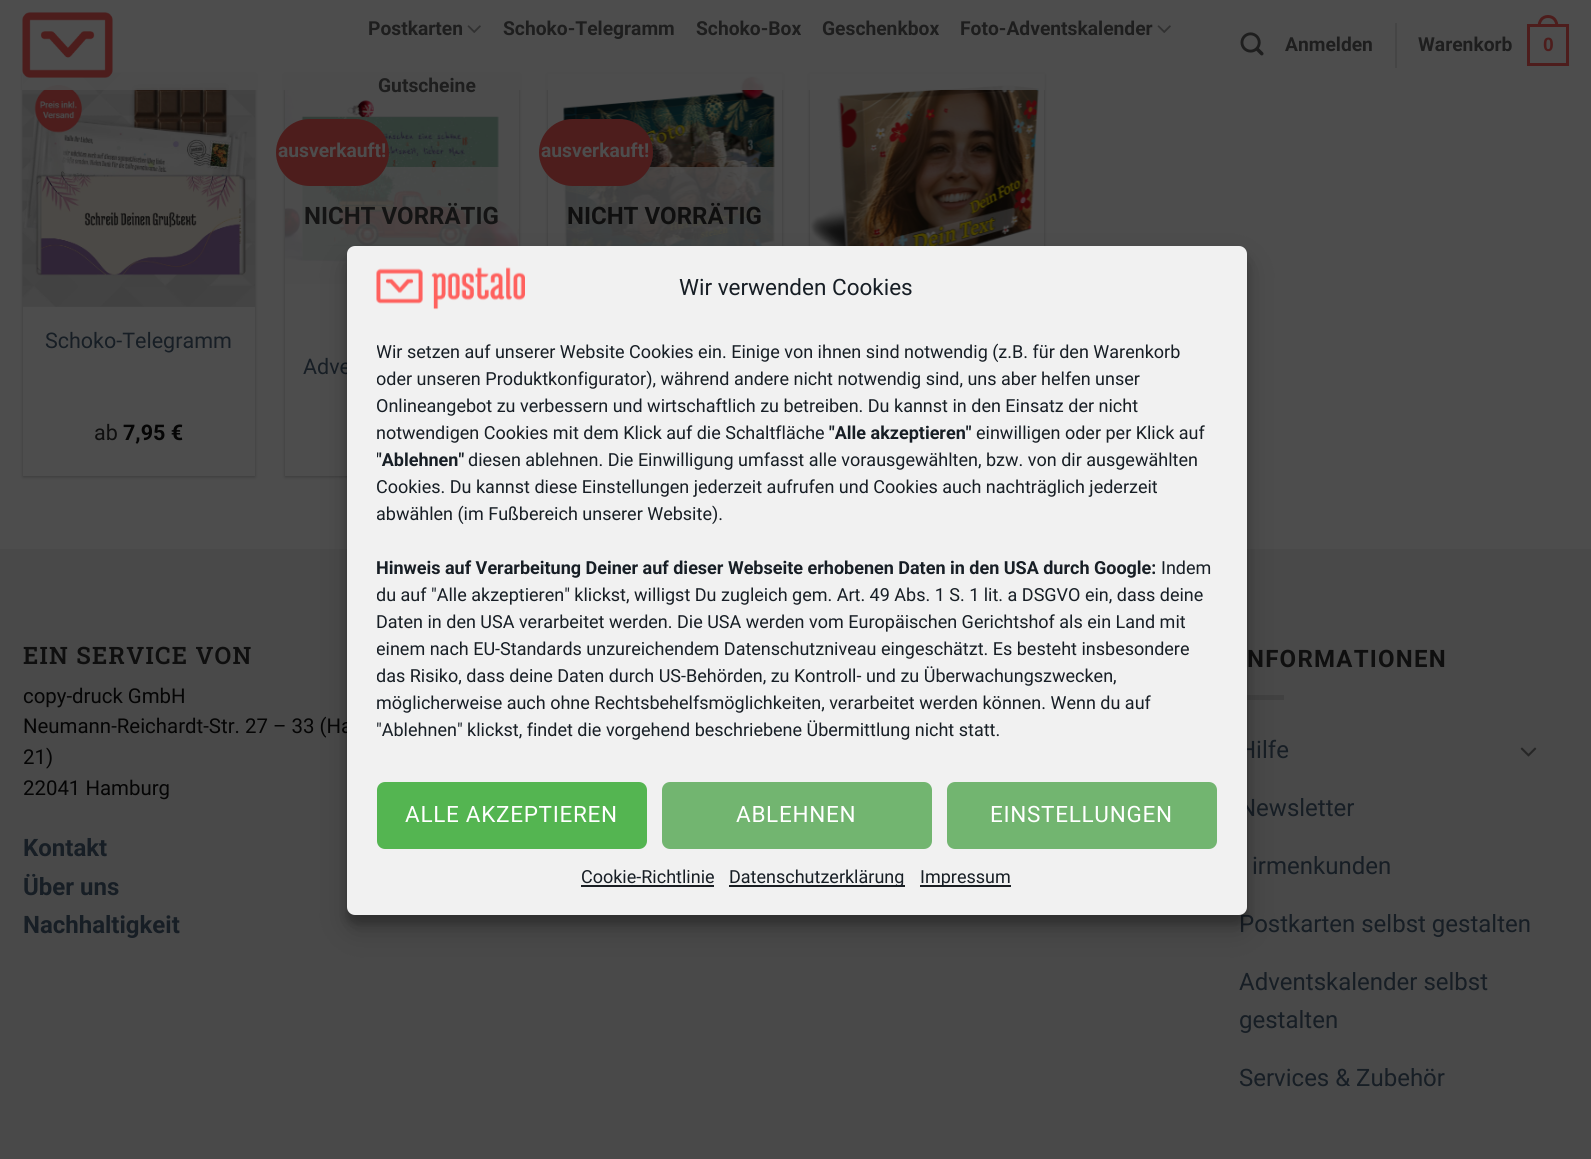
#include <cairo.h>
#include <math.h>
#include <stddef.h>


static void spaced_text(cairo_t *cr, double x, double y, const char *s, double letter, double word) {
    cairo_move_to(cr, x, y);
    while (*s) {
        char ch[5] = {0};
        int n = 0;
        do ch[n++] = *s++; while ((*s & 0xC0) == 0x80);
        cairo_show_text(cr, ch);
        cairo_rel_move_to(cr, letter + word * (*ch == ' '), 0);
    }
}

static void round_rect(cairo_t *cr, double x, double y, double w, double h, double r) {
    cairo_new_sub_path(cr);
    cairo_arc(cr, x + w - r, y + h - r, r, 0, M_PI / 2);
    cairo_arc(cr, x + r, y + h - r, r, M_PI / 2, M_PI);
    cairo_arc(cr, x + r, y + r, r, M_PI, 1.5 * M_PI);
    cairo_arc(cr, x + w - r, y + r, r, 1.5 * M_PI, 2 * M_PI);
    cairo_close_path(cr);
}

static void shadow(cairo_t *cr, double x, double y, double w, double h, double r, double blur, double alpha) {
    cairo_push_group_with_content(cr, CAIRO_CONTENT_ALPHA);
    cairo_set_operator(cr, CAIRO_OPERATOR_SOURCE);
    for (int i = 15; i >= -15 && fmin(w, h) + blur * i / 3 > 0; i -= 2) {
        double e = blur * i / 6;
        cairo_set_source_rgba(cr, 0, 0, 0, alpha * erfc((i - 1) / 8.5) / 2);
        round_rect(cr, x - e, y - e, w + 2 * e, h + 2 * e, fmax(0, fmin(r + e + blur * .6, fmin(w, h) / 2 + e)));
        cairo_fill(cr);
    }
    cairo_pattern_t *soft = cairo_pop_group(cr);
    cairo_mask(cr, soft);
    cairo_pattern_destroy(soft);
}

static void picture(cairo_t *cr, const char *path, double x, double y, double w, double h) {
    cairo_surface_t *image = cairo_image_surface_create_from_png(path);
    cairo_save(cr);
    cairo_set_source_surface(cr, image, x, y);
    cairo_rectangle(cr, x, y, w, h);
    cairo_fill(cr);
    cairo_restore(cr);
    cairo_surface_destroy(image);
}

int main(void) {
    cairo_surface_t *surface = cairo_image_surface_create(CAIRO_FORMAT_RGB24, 1591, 1159);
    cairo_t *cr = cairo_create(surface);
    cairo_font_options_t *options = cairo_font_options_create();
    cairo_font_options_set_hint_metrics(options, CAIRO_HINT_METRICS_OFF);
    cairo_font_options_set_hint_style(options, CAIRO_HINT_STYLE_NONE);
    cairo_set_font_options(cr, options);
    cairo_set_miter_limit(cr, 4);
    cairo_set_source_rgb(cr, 0.302, 0.302, 0.302);
    cairo_paint(cr);
    cairo_set_source_rgb(cr, 0, 0, 0);
    shadow(cr, 285, 75, 234, 402, 0, 1.5, 0.24);
    cairo_set_source_rgb(cr, 0.302, 0.302, 0.302);
    cairo_rectangle(cr, 285, 74, 234, 402);
    cairo_fill(cr);
    picture(cr, "img4.png", 285, 73, 234, 211);
    cairo_set_source_rgb(cr, 0, 0, 0);
    shadow(cr, 548, 75, 234, 402, 0, 1.5, 0.24);
    cairo_set_source_rgb(cr, 0.302, 0.302, 0.302);
    cairo_rectangle(cr, 548, 74, 234, 172);
    cairo_fill(cr);
    picture(cr, "img5.png", 560, 76, 215, 170);
    cairo_set_source_rgb(cr, 0, 0, 0);
    shadow(cr, 810, 75, 234, 402, 0, 1.5, 0.24);
    cairo_set_source_rgb(cr, 0.302, 0.302, 0.302);
    cairo_rectangle(cr, 810, 74, 234, 172);
    cairo_fill(cr);
    picture(cr, "img6.png", 810, 85, 229, 161);
    cairo_set_source_rgb(cr, 0, 0, 0);
    shadow(cr, 23, 75, 232, 402, 0, 1.5, 0.24);
    cairo_set_source_rgb(cr, 0.302, 0.302, 0.302);
    cairo_rectangle(cr, 23, 306, 232, 170);
    cairo_fill(cr);
    picture(cr, "img7.png", 22, 73, 233, 234);
    cairo_set_source_rgba(cr, 0.302, 0.302, 0.302, 0.9);
    cairo_rectangle(cr, 22, 73, 1023, 17);
    cairo_fill(cr);
    picture(cr, "img1.png", 22, 12, 91, 66);
    cairo_select_font_face(cr, "Roboto", CAIRO_FONT_SLANT_NORMAL, CAIRO_FONT_WEIGHT_BOLD);
    cairo_set_font_size(cr, 19.25);
    cairo_set_source_rgb(cr, 0.118, 0.118, 0.118);
    cairo_move_to(cr, 368, 35);
    cairo_show_text(cr, "Postkarten");
    picture(cr, "img2.png", 467, 25, 14, 8);
    cairo_move_to(cr, 503, 35);
    cairo_show_text(cr, "Schoko-Telegramm");
    cairo_move_to(cr, 696, 35);
    cairo_show_text(cr, "Schoko-Box");
    cairo_move_to(cr, 822, 35);
    cairo_show_text(cr, "Geschenkbox");
    cairo_move_to(cr, 960, 35);
    cairo_show_text(cr, "Foto-Adventskalender");
    picture(cr, "img2.png", 1157, 25, 14, 8);
    cairo_move_to(cr, 378, 92);
    cairo_show_text(cr, "Gutscheine");
    picture(cr, "img3.png", 1240, 32, 24, 24);
    cairo_move_to(cr, 1285, 51);
    cairo_show_text(cr, "Anmelden");
    cairo_set_source_rgb(cr, 0.271, 0.271, 0.271);
    cairo_rectangle(cr, 1395, 23, 2, 45);
    cairo_fill(cr);
    cairo_set_source_rgb(cr, 0.118, 0.118, 0.118);
    cairo_move_to(cr, 1418, 51);
    cairo_show_text(cr, "Warenkorb");
    cairo_rectangle(cr, 1528.5, 25.5, 39, 39);
    cairo_set_source_rgb(cr, 0.302, 0.114, 0.11);
    cairo_set_line_width(cr, 3);
    cairo_stroke(cr);
    cairo_set_fill_rule(cr, CAIRO_FILL_RULE_EVEN_ODD);
    cairo_new_path(cr);
    cairo_move_to(cr, 1548, 15);
    cairo_curve_to(cr, 1555, 15, 1558.5, 20.5, 1558.5, 27);
    cairo_line_to(cr, 1537.5, 27);
    cairo_curve_to(cr, 1537.5, 20.5, 1541, 15, 1548, 15);
    cairo_close_path(cr);
    cairo_move_to(cr, 1548, 18);
    cairo_curve_to(cr, 1553.5, 18, 1555.5, 22.5, 1555.5, 27);
    cairo_line_to(cr, 1540.5, 27);
    cairo_curve_to(cr, 1540.5, 22.5, 1542.5, 18, 1548, 18);
    cairo_close_path(cr);
    cairo_fill(cr);
    cairo_select_font_face(cr, "Liberation Sans", CAIRO_FONT_SLANT_NORMAL, CAIRO_FONT_WEIGHT_BOLD);
    cairo_move_to(cr, 1543, 51);
    cairo_show_text(cr, "0");
    cairo_set_source_rgba(cr, 0.302, 0.302, 0.302, 0.81);
    cairo_rectangle(cr, 285, 167, 234, 99);
    cairo_fill(cr);
    cairo_set_source_rgb(cr, 0.302, 0.114, 0.11);
    round_rect(cr, 276, 119, 113, 67, 33.5);
    cairo_fill(cr);
    cairo_select_font_face(cr, "Roboto", CAIRO_FONT_SLANT_NORMAL, CAIRO_FONT_WEIGHT_BOLD);
    cairo_set_source_rgb(cr, 0.302, 0.302, 0.302);
    cairo_move_to(cr, 278, 157);
    cairo_show_text(cr, "ausverkauft!");
    cairo_set_font_size(cr, 24);
    cairo_set_source_rgb(cr, 0.082, 0.082, 0.082);
    cairo_move_to(cr, 304, 224);
    cairo_show_text(cr, "NICHT VORRÄTIG");
    cairo_select_font_face(cr, "Roboto", CAIRO_FONT_SLANT_NORMAL, CAIRO_FONT_WEIGHT_NORMAL);
    cairo_set_font_size(cr, 21.5);
    cairo_set_source_rgb(cr, 0.09, 0.118, 0.145);
    cairo_move_to(cr, 303, 374);
    cairo_show_text(cr, "Adve");
    cairo_set_source_rgba(cr, 0.302, 0.302, 0.302, 0.81);
    cairo_rectangle(cr, 564, 167, 211, 79);
    cairo_fill(cr);
    cairo_set_source_rgb(cr, 0.302, 0.114, 0.11);
    round_rect(cr, 539, 119, 114, 67, 33.5);
    cairo_fill(cr);
    cairo_select_font_face(cr, "Roboto", CAIRO_FONT_SLANT_NORMAL, CAIRO_FONT_WEIGHT_BOLD);
    cairo_set_font_size(cr, 19.25);
    cairo_set_source_rgb(cr, 0.302, 0.302, 0.302);
    cairo_move_to(cr, 541, 157);
    cairo_show_text(cr, "ausverkauft!");
    cairo_set_font_size(cr, 24);
    cairo_set_source_rgb(cr, 0.059, 0.059, 0.059);
    cairo_move_to(cr, 567, 224);
    cairo_show_text(cr, "NICHT VORRÄTIG");
    cairo_select_font_face(cr, "Roboto", CAIRO_FONT_SLANT_NORMAL, CAIRO_FONT_WEIGHT_NORMAL);
    cairo_set_font_size(cr, 21.5);
    cairo_set_source_rgb(cr, 0.09, 0.118, 0.145);
    cairo_move_to(cr, 45, 348);
    cairo_show_text(cr, "Schoko-Telegramm");
    cairo_set_source_rgb(cr, 0.059, 0.059, 0.059);
    cairo_move_to(cr, 94, 440);
    cairo_show_text(cr, "ab");
    cairo_select_font_face(cr, "Roboto", CAIRO_FONT_SLANT_NORMAL, CAIRO_FONT_WEIGHT_BOLD);
    cairo_set_source_rgb(cr, 0.02, 0.02, 0.02);
    cairo_move_to(cr, 123, 440);
    cairo_show_text(cr, "7,95 €");
    cairo_set_source_rgb(cr, 0.286, 0.286, 0.286);
    cairo_rectangle(cr, 0, 549, 1591, 610);
    cairo_fill(cr);
    cairo_select_font_face(cr, "Roboto Slab SemiBold", CAIRO_FONT_SLANT_NORMAL, CAIRO_FONT_WEIGHT_NORMAL);
    cairo_set_font_size(cr, 24);
    cairo_set_source_rgb(cr, 0.059, 0.059, 0.059);
    spaced_text(cr, 23, 664, "EIN SERVICE VON", 1.25, 0);
    cairo_select_font_face(cr, "Roboto", CAIRO_FONT_SLANT_NORMAL, CAIRO_FONT_WEIGHT_NORMAL);
    cairo_set_font_size(cr, 20.4);
    cairo_set_source_rgb(cr, 0.02, 0.02, 0.02);
    cairo_move_to(cr, 23, 703);
    cairo_show_text(cr, "copy-druck GmbH");
    cairo_move_to(cr, 23, 733);
    cairo_show_text(cr, "Neumann-Reichardt-Str. 27 – 33 (Ha");
    cairo_move_to(cr, 23, 764);
    cairo_show_text(cr, "21)");
    cairo_move_to(cr, 23, 795);
    cairo_show_text(cr, "22041 Hamburg");
    cairo_select_font_face(cr, "Roboto", CAIRO_FONT_SLANT_NORMAL, CAIRO_FONT_WEIGHT_BOLD);
    cairo_set_font_size(cr, 24);
    cairo_set_source_rgb(cr, 0.09, 0.118, 0.145);
    cairo_move_to(cr, 23, 856);
    cairo_show_text(cr, "Kontakt");
    cairo_move_to(cr, 23, 895);
    cairo_show_text(cr, "Über uns");
    cairo_move_to(cr, 23, 933);
    cairo_show_text(cr, "Nachhaltigkeit");
    cairo_set_source_rgb(cr, 0.059, 0.059, 0.059);
    spaced_text(cr, 1247, 667, "NFORMATIONEN", 1.25, 0);
    cairo_set_source_rgb(cr, 0.255, 0.255, 0.255);
    cairo_rectangle(cr, 1239, 695, 45, 5);
    cairo_fill(cr);
    cairo_select_font_face(cr, "Roboto", CAIRO_FONT_SLANT_NORMAL, CAIRO_FONT_WEIGHT_NORMAL);
    cairo_set_source_rgb(cr, 0.09, 0.118, 0.145);
    cairo_move_to(cr, 1239, 758);
    cairo_show_text(cr, "Hilfe");
    picture(cr, "img8.png", 1520, 747, 17, 10);
    cairo_move_to(cr, 1239, 816);
    cairo_show_text(cr, "Newsletter");
    cairo_move_to(cr, 1252, 874);
    cairo_show_text(cr, "irmenkunden");
    cairo_move_to(cr, 1239, 932);
    cairo_show_text(cr, "Postkarten selbst gestalten");
    cairo_move_to(cr, 1239, 990);
    cairo_show_text(cr, "Adventskalender selbst");
    cairo_move_to(cr, 1239, 1028);
    cairo_show_text(cr, "gestalten");
    cairo_move_to(cr, 1239, 1086);
    cairo_show_text(cr, "Services & Zubehör");
    cairo_set_source_rgb(cr, 0, 0, 0);
    shadow(cr, 347, 255, 900, 669, 8, 4.5, 0.23);
    shadow(cr, 347, 261, 900, 669, 8, 15, 0.19);
    cairo_set_source_rgb(cr, 0.945, 0.945, 0.945);
    round_rect(cr, 347, 246, 900, 669, 8);
    cairo_fill(cr);
    picture(cr, "img9.png", 376, 267, 149, 43);
    cairo_set_font_size(cr, 22.5);
    cairo_set_source_rgb(cr, 0.09, 0.118, 0.145);
    cairo_move_to(cr, 679, 295);
    cairo_show_text(cr, "Wir verwenden Cookies");
    cairo_save(cr);
    cairo_set_fill_rule(cr, CAIRO_FILL_RULE_WINDING);
    cairo_rectangle(cr, 377, 339, 840, 413);
    cairo_clip(cr);
    cairo_set_font_size(cr, 18);
    cairo_move_to(cr, 376, 358);
    cairo_show_text(cr, "Wir setzen auf unserer Website Cookies ein. Einige von ihnen sind notwendig (z.B. für den Warenkorb");
    cairo_move_to(cr, 376, 385);
    cairo_show_text(cr, "oder unseren Produktkonfigurator), während andere nicht notwendig sind, uns aber helfen unser");
    cairo_move_to(cr, 376, 412);
    cairo_show_text(cr, "Onlineangebot zu verbessern und wirtschaftlich zu betreiben. Du kannst in den Einsatz der nicht");
    cairo_restore(cr);
    cairo_set_font_size(cr, 18);
    cairo_move_to(cr, 376, 439);
    cairo_show_text(cr, "notwendigen Cookies mit dem Klick auf die Schaltfläche");
    cairo_select_font_face(cr, "Roboto", CAIRO_FONT_SLANT_NORMAL, CAIRO_FONT_WEIGHT_BOLD);
    cairo_move_to(cr, 829, 439);
    cairo_show_text(cr, "\"Alle akzeptieren\"");
    cairo_select_font_face(cr, "Roboto", CAIRO_FONT_SLANT_NORMAL, CAIRO_FONT_WEIGHT_NORMAL);
    cairo_move_to(cr, 976, 439);
    cairo_show_text(cr, "einwilligen oder per Klick auf");
    cairo_save(cr);
    cairo_set_fill_rule(cr, CAIRO_FILL_RULE_WINDING);
    cairo_rectangle(cr, 377, 339, 840, 413);
    cairo_clip(cr);
    cairo_select_font_face(cr, "Roboto", CAIRO_FONT_SLANT_NORMAL, CAIRO_FONT_WEIGHT_BOLD);
    cairo_move_to(cr, 376, 466);
    cairo_show_text(cr, "\"Ablehnen\"");
    cairo_restore(cr);
    cairo_move_to(cr, 468, 466);
    cairo_show_text(cr, "diesen ablehnen. Die Einwilligung umfasst alle vorausgewählten, bzw. von dir ausgewählten");
    cairo_save(cr);
    cairo_set_fill_rule(cr, CAIRO_FILL_RULE_WINDING);
    cairo_rectangle(cr, 377, 339, 840, 413);
    cairo_clip(cr);
    cairo_move_to(cr, 376, 493);
    cairo_show_text(cr, "Cookies. Du kannst diese Einstellungen jederzeit aufrufen und Cookies auch nachträglich jederzeit");
    cairo_move_to(cr, 376, 520);
    cairo_show_text(cr, "abwählen (im Fußbereich unserer Website).");
    cairo_select_font_face(cr, "Roboto", CAIRO_FONT_SLANT_NORMAL, CAIRO_FONT_WEIGHT_BOLD);
    cairo_move_to(cr, 376, 574);
    cairo_show_text(cr, "Hinweis auf Verarbeitung Deiner auf dieser Webseite erhobenen Daten in den USA durch Google:");
    cairo_restore(cr);
    cairo_move_to(cr, 1161, 574);
    cairo_show_text(cr, "Indem");
    cairo_save(cr);
    cairo_set_fill_rule(cr, CAIRO_FILL_RULE_WINDING);
    cairo_rectangle(cr, 377, 339, 840, 413);
    cairo_clip(cr);
    cairo_move_to(cr, 376, 601);
    cairo_show_text(cr, "du auf \"Alle akzeptieren\" klickst, willigst Du zugleich gem. Art. 49 Abs. 1 S. 1 lit. a DSGVO ein, dass deine");
    cairo_restore(cr);
    cairo_move_to(cr, 376, 628);
    cairo_show_text(cr, "Daten in den USA verarbeitet werden. Die USA werden vom Europäischen Gerichtshof als ein Land mit");
    cairo_save(cr);
    cairo_set_fill_rule(cr, CAIRO_FILL_RULE_WINDING);
    cairo_rectangle(cr, 377, 339, 840, 413);
    cairo_clip(cr);
    cairo_move_to(cr, 376, 655);
    cairo_show_text(cr, "einem nach EU-Standards unzureichendem Datenschutzniveau eingeschätzt. Es besteht insbesondere");
    cairo_move_to(cr, 376, 682);
    cairo_show_text(cr, "das Risiko, dass deine Daten durch US-Behörden, zu Kontroll- und zu Überwachungszwecken,");
    cairo_restore(cr);
    cairo_move_to(cr, 376, 709);
    cairo_show_text(cr, "möglicherweise auch ohne Rechtsbehelfsmöglichkeiten, verarbeitet werden können. Wenn du auf");
    cairo_move_to(cr, 376, 736);
    cairo_show_text(cr, "\"Ablehnen\" klickst, findet die vorgehend beschriebene Übermittlung nicht statt.");
    cairo_set_source_rgb(cr, 0.329, 0.71, 0.318);
    round_rect(cr, 378, 783, 268, 65, 7);
    cairo_fill_preserve(cr);
    cairo_set_line_width(cr, 2);
    cairo_stroke(cr);
    cairo_set_font_size(cr, 22.5);
    cairo_set_source_rgb(cr, 1, 1, 1);
    spaced_text(cr, 405, 822, "ALLE AKZEPTIEREN", 0.7, 0);
    cairo_set_source_rgb(cr, 0.447, 0.71, 0.439);
    round_rect(cr, 663, 783, 268, 65, 7);
    cairo_fill_preserve(cr);
    cairo_stroke(cr);
    cairo_set_source_rgb(cr, 1, 1, 1);
    spaced_text(cr, 736, 822, "ABLEHNEN", 0.7, 0);
    cairo_set_source_rgb(cr, 0.447, 0.71, 0.439);
    round_rect(cr, 948, 783, 268, 65, 7);
    cairo_fill_preserve(cr);
    cairo_stroke(cr);
    cairo_set_source_rgb(cr, 1, 1, 1);
    spaced_text(cr, 990, 822, "EINSTELLUNGEN", 0.7, 0);
    cairo_set_font_size(cr, 18);
    cairo_set_source_rgb(cr, 0.09, 0.118, 0.145);
    cairo_move_to(cr, 581, 883);
    cairo_show_text(cr, "Cookie-Richtlinie");
    cairo_set_source_rgb(cr, 0.098, 0.118, 0.137);
    cairo_rectangle(cr, 581, 885, 133, 2);
    cairo_fill(cr);
    cairo_rectangle(cr, 729, 885, 176, 2);
    cairo_fill(cr);
    cairo_set_source_rgb(cr, 0.09, 0.118, 0.145);
    cairo_move_to(cr, 729, 883);
    cairo_show_text(cr, "Datenschutzerklärung");
    cairo_set_source_rgb(cr, 0.098, 0.118, 0.137);
    cairo_rectangle(cr, 920, 885, 91, 2);
    cairo_fill(cr);
    cairo_set_source_rgb(cr, 0.09, 0.118, 0.145);
    cairo_move_to(cr, 920, 883);
    cairo_show_text(cr, "Impressum");
    cairo_surface_write_to_png(surface, "page.png");
    cairo_font_options_destroy(options);
    cairo_destroy(cr);
    cairo_surface_destroy(surface);
    return 0;
}
